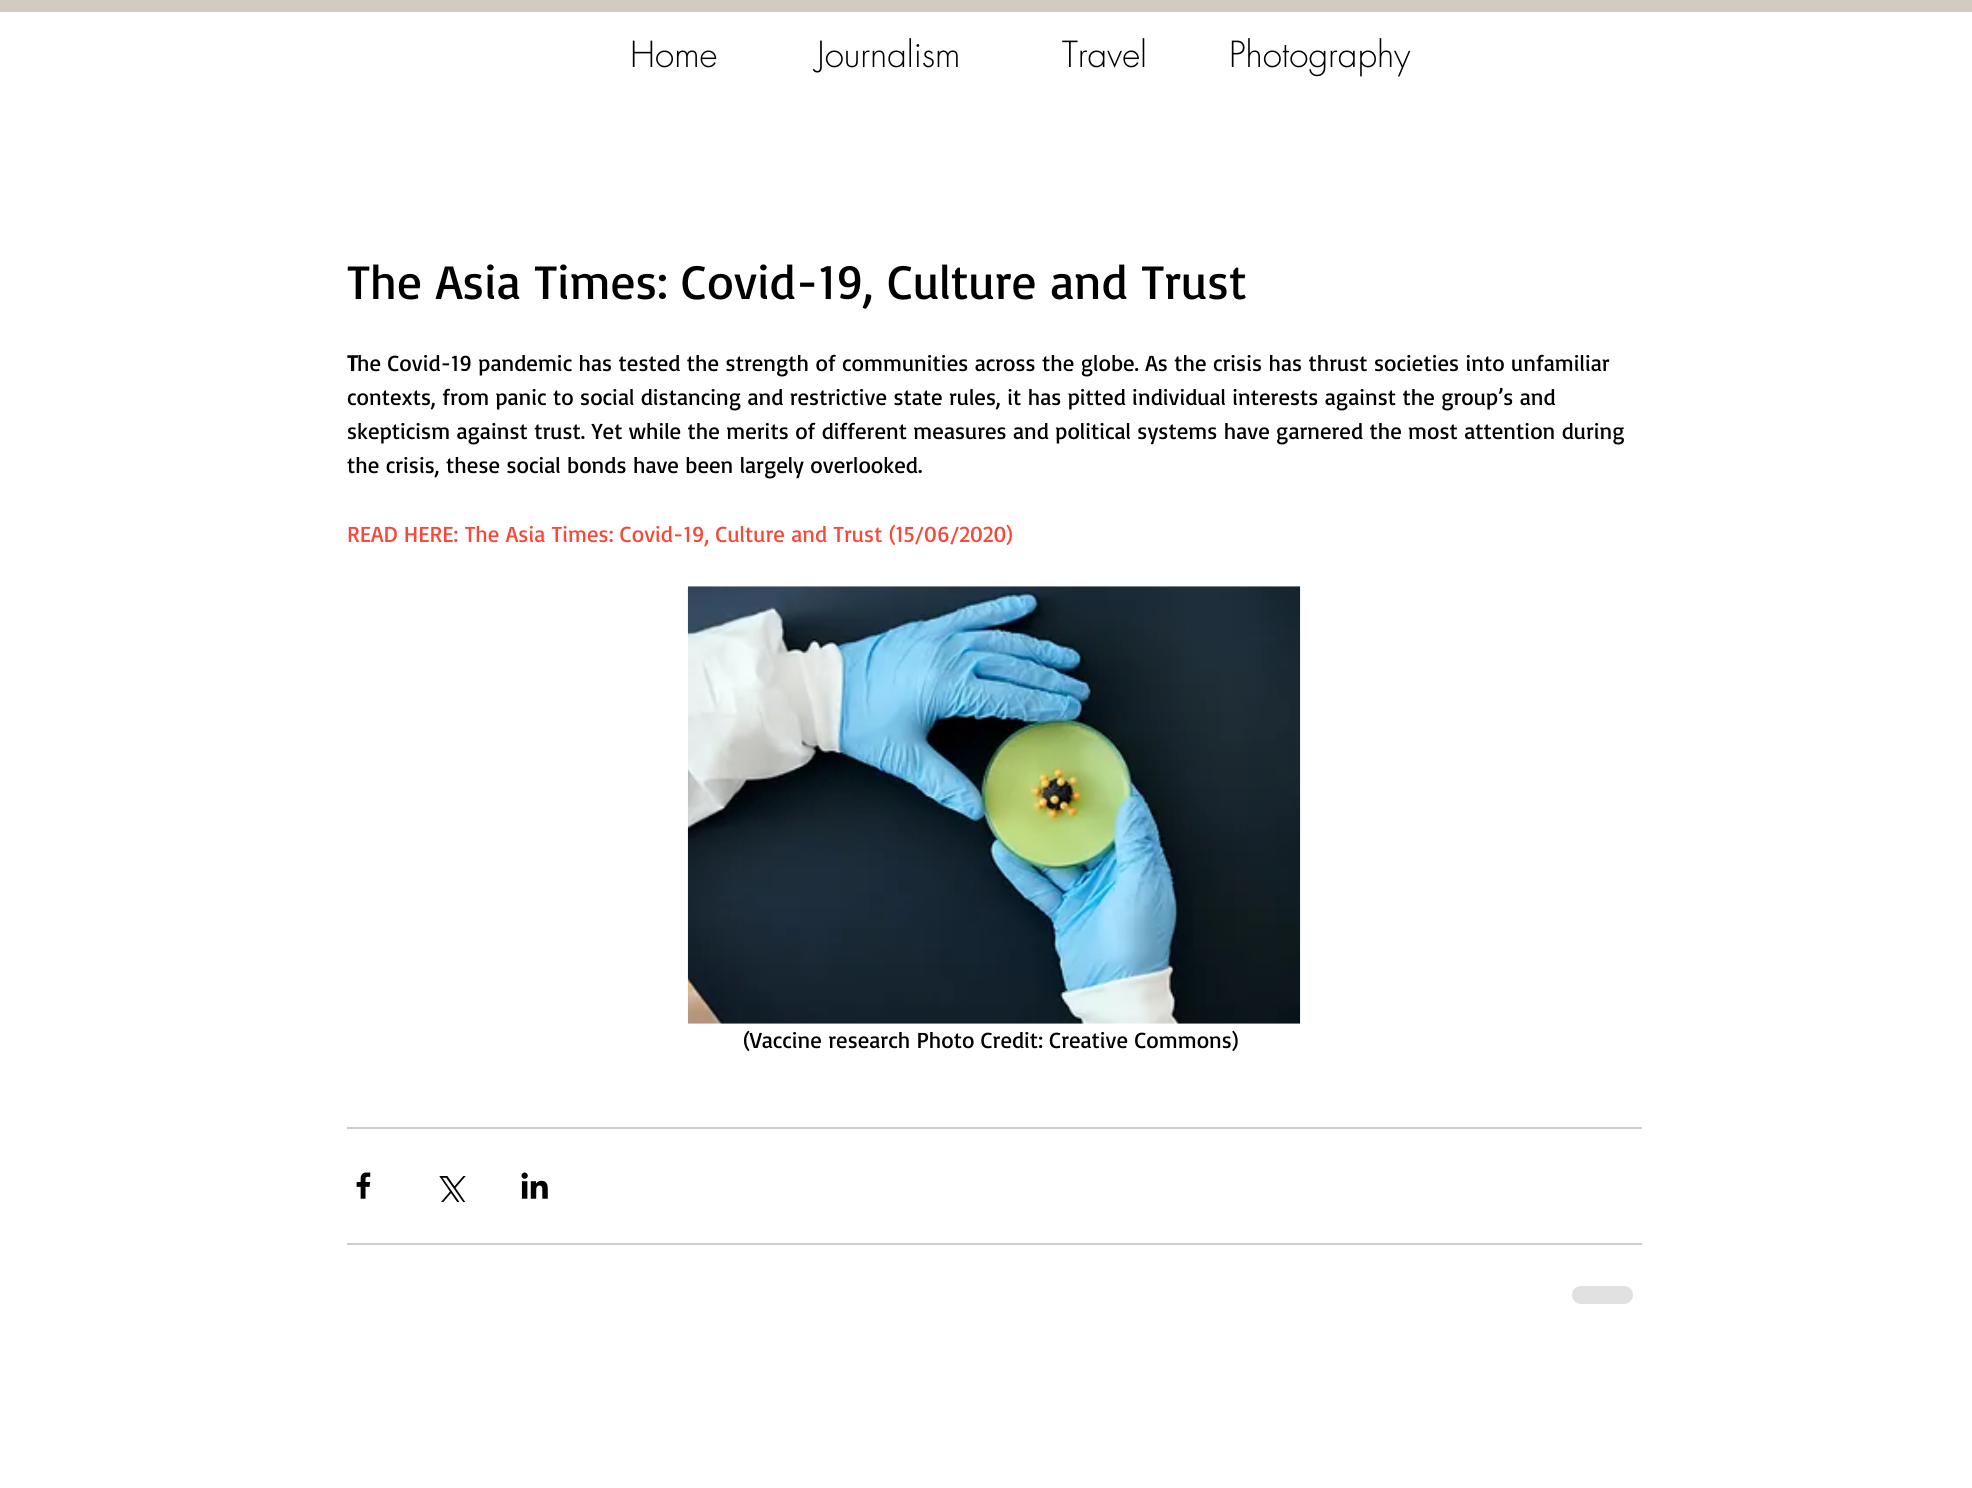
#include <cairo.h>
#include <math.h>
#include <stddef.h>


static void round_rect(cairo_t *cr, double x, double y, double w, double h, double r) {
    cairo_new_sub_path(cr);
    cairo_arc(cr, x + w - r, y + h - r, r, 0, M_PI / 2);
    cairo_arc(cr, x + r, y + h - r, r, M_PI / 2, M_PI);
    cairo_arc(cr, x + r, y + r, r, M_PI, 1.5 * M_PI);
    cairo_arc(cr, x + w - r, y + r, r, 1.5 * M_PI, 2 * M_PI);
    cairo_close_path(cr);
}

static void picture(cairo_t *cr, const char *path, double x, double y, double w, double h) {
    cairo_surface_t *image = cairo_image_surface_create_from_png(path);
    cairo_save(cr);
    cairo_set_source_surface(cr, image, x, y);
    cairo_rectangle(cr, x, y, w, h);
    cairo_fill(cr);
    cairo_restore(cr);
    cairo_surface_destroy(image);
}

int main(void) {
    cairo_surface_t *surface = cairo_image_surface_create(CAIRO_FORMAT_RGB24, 1972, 1488);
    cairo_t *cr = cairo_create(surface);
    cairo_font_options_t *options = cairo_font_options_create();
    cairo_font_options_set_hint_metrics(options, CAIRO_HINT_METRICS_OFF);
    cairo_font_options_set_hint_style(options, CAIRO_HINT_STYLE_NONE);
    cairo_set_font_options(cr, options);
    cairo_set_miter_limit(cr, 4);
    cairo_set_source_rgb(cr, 1, 1, 1);
    cairo_paint(cr);
    cairo_set_source_rgb(cr, 0.82, 0.796, 0.753);
    cairo_rectangle(cr, 0, 0, 1972, 12);
    cairo_fill(cr);
    cairo_select_font_face(cr, "futura Light", CAIRO_FONT_SLANT_NORMAL, CAIRO_FONT_WEIGHT_NORMAL);
    cairo_set_font_size(cr, 35);
    cairo_set_source_rgb(cr, 0, 0, 0);
    cairo_move_to(cr, 630, 67);
    cairo_show_text(cr, "Home");
    cairo_move_to(cr, 817, 67);
    cairo_show_text(cr, "Journalism");
    cairo_move_to(cr, 1062, 67);
    cairo_show_text(cr, "Travel");
    cairo_move_to(cr, 1229, 67);
    cairo_show_text(cr, "Photography");
    cairo_select_font_face(cr, "Basic", CAIRO_FONT_SLANT_NORMAL, CAIRO_FONT_WEIGHT_NORMAL);
    cairo_set_font_size(cr, 49);
    cairo_move_to(cr, 347, 299);
    cairo_show_text(cr, "The Asia Times: Covid-19, Culture and Trust");
    cairo_select_font_face(cr, "Basic", CAIRO_FONT_SLANT_NORMAL, CAIRO_FONT_WEIGHT_BOLD);
    cairo_set_font_size(cr, 22.75);
    cairo_move_to(cr, 347, 371);
    cairo_show_text(cr, "T");
    cairo_select_font_face(cr, "Basic", CAIRO_FONT_SLANT_NORMAL, CAIRO_FONT_WEIGHT_NORMAL);
    cairo_move_to(cr, 357, 371);
    cairo_show_text(cr, "he Covid-19 pandemic has tested the strength of communities across the globe. As the crisis has thrust societies into unfamiliar");
    cairo_move_to(cr, 347, 405);
    cairo_show_text(cr, "contexts, from panic to social distancing and restrictive state rules, it has pitted individual interests against the group’s and");
    cairo_move_to(cr, 347, 439);
    cairo_show_text(cr, "skepticism against trust. Yet while the merits of different measures and political systems have garnered the most attention during");
    cairo_move_to(cr, 347, 473);
    cairo_show_text(cr, "the crisis, these social bonds have been largely overlooked.");
    cairo_set_source_rgb(cr, 0.973, 0.278, 0.22);
    cairo_move_to(cr, 347, 542);
    cairo_show_text(cr, "READ HERE: The Asia Times: Covid-19, Culture and Trust (15/06/2020)");
    picture(cr, "img1.png", 687, 586, 614, 438);
    cairo_set_source_rgb(cr, 0, 0, 0);
    cairo_move_to(cr, 743, 1048);
    cairo_show_text(cr, "(Vaccine research Photo Credit: Creative Commons)");
    cairo_set_source_rgb(cr, 0.804, 0.804, 0.804);
    cairo_rectangle(cr, 347, 1127, 1295, 2);
    cairo_fill(cr);
    picture(cr, "img2.png", 356, 1172, 15, 27);
    picture(cr, "img3.png", 439, 1176, 27, 26);
    picture(cr, "img4.png", 521, 1172, 27, 27);
    cairo_rectangle(cr, 347, 1243, 1295, 2);
    cairo_fill(cr);
    cairo_set_source_rgb(cr, 0.882, 0.882, 0.882);
    round_rect(cr, 1572, 1286, 61, 18, 9);
    cairo_fill(cr);
    cairo_surface_write_to_png(surface, "page.png");
    cairo_font_options_destroy(options);
    cairo_destroy(cr);
    cairo_surface_destroy(surface);
    return 0;
}
